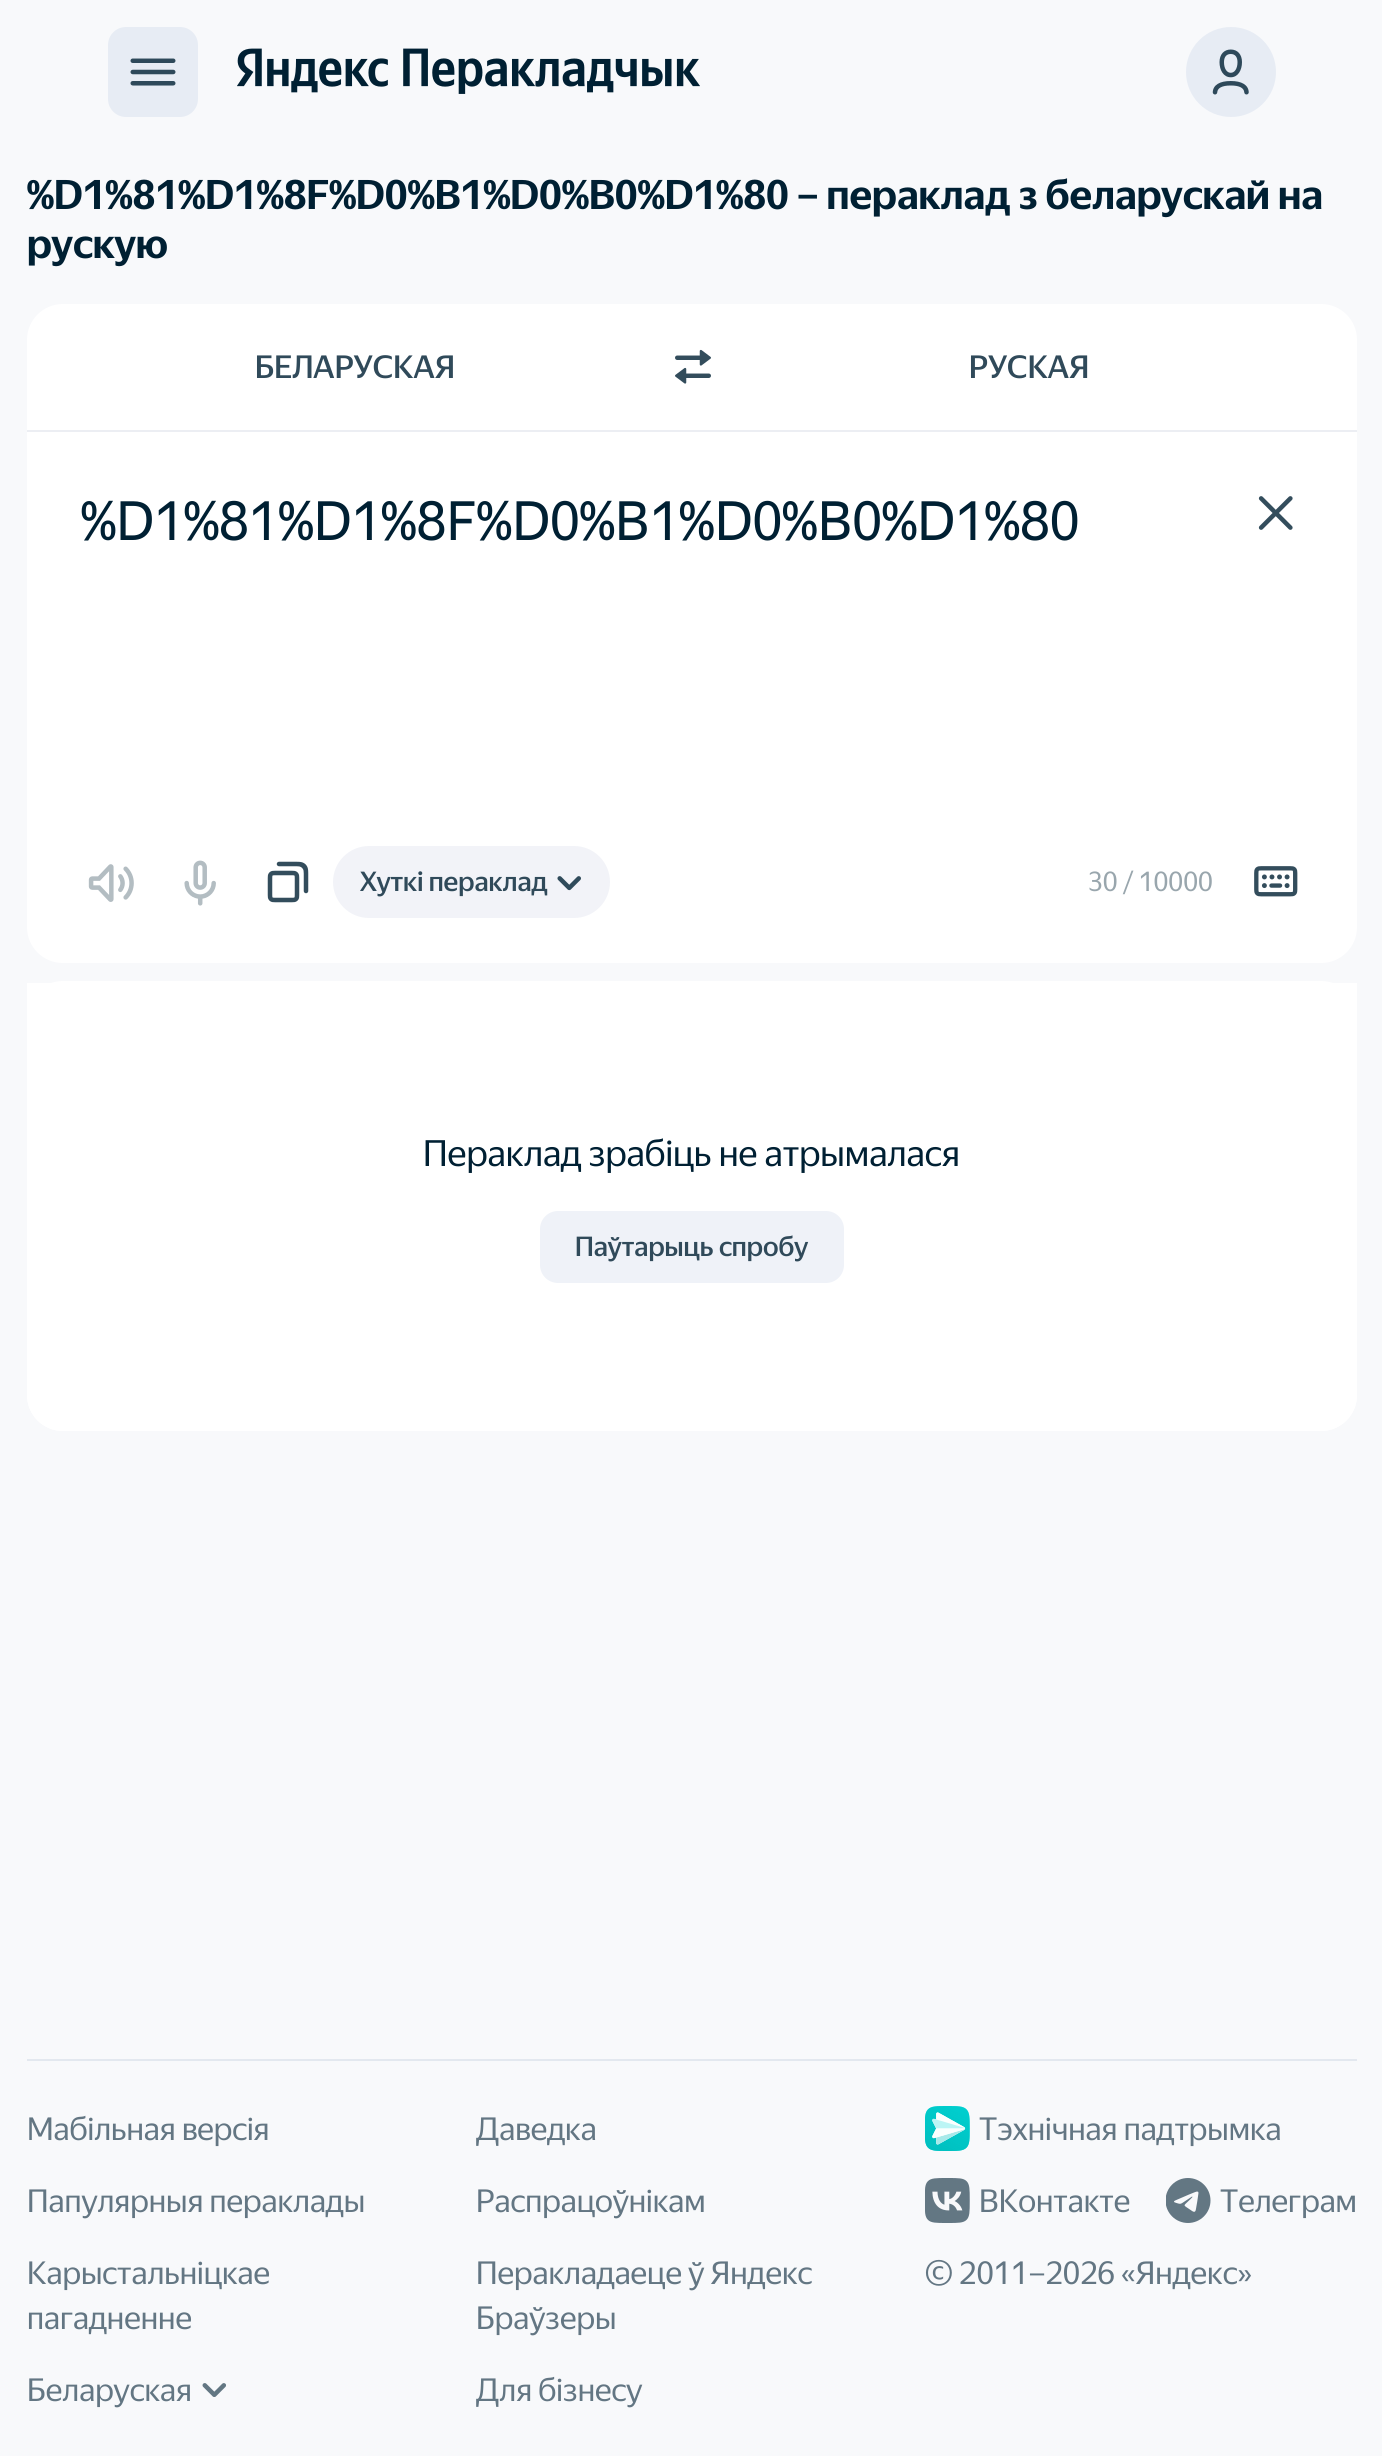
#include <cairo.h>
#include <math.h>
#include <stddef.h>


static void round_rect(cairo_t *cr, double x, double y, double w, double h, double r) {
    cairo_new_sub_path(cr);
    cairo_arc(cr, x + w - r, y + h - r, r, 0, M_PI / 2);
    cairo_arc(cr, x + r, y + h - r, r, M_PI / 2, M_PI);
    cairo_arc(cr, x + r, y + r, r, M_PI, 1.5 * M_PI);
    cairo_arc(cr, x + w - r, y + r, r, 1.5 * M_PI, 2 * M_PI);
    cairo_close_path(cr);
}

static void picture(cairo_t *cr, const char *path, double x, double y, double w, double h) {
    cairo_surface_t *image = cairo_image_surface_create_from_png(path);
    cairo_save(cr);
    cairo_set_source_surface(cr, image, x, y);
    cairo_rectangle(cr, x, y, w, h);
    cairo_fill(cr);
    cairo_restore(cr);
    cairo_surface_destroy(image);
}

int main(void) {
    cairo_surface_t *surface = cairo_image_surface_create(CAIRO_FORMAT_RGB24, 1382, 2456);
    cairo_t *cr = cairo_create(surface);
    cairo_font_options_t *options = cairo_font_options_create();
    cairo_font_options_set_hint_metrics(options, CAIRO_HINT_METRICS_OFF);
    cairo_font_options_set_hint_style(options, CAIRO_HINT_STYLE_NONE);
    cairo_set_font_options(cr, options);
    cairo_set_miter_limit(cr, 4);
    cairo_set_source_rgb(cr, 0.969, 0.973, 0.984);
    cairo_paint(cr);
    cairo_set_source_rgb(cr, 0.906, 0.922, 0.957);
    round_rect(cr, 108, 27, 90, 90, 18);
    cairo_fill(cr);
    picture(cr, "img1.png", 130, 58, 46, 28);
    picture(cr, "img2.png", 237, 48, 151, 45);
    picture(cr, "img3.png", 403, 48, 297, 46);
    cairo_arc(cr, 1231, 72, 45, 0, 2 * M_PI);
    cairo_fill(cr);
    picture(cr, "img4.png", 1212, 49, 37, 46);
    cairo_select_font_face(cr, "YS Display", CAIRO_FONT_SLANT_NORMAL, CAIRO_FONT_WEIGHT_BOLD);
    cairo_set_font_size(cr, 40.5);
    cairo_set_source_rgb(cr, 0, 0.125, 0.2);
    cairo_move_to(cr, 27, 209);
    cairo_show_text(cr, "%D1%81%D1%8F%D0%B1%D0%B0%D1%80 – пераклад з беларускай на");
    cairo_move_to(cr, 27, 258);
    cairo_show_text(cr, "рускую");
    cairo_set_source_rgb(cr, 1, 1, 1);
    cairo_new_path(cr);
    cairo_move_to(cr, 63, 304);
    cairo_line_to(cr, 1321, 304);
    cairo_curve_to(cr, 1341, 304, 1357, 320, 1357, 340);
    cairo_line_to(cr, 1357, 430);
    cairo_line_to(cr, 27, 430);
    cairo_line_to(cr, 27, 340);
    cairo_curve_to(cr, 27, 320, 43, 304, 63, 304);
    cairo_close_path(cr);
    cairo_fill(cr);
    cairo_select_font_face(cr, "YS Display Medium", CAIRO_FONT_SLANT_NORMAL, CAIRO_FONT_WEIGHT_NORMAL);
    cairo_set_font_size(cr, 31.5);
    cairo_set_source_rgb(cr, 0.188, 0.29, 0.353);
    cairo_move_to(cr, 255, 378);
    cairo_show_text(cr, "БЕЛАРУСКАЯ");
    picture(cr, "img5.png", 675, 349, 36, 35);
    cairo_move_to(cr, 969, 378);
    cairo_show_text(cr, "РУСКАЯ");
    cairo_set_source_rgb(cr, 0.922, 0.933, 0.953);
    cairo_rectangle(cr, 27, 430, 1330, 2);
    cairo_fill(cr);
    cairo_set_source_rgb(cr, 1, 1, 1);
    cairo_new_path(cr);
    cairo_move_to(cr, 27, 432);
    cairo_line_to(cr, 1357, 432);
    cairo_line_to(cr, 1357, 927);
    cairo_curve_to(cr, 1357, 947, 1341, 963, 1321, 963);
    cairo_line_to(cr, 63, 963);
    cairo_curve_to(cr, 43, 963, 27, 947, 27, 927);
    cairo_close_path(cr);
    cairo_fill(cr);
    cairo_select_font_face(cr, "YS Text", CAIRO_FONT_SLANT_NORMAL, CAIRO_FONT_WEIGHT_NORMAL);
    cairo_set_font_size(cr, 54);
    cairo_set_source_rgb(cr, 0, 0.125, 0.2);
    cairo_move_to(cr, 81, 540);
    cairo_show_text(cr, "%D1%81%D1%8F%D0%B1%D0%B0%D1%80");
    picture(cr, "img6.png", 1258, 496, 35, 34);
    picture(cr, "img7.png", 88, 864, 46, 38);
    picture(cr, "img8.png", 184, 860, 32, 46);
    picture(cr, "img9.png", 267, 861, 42, 42);
    cairo_set_source_rgb(cr, 0.949, 0.953, 0.969);
    round_rect(cr, 333, 846, 277, 72, 36);
    cairo_fill(cr);
    cairo_select_font_face(cr, "YS Display Medium", CAIRO_FONT_SLANT_NORMAL, CAIRO_FONT_WEIGHT_NORMAL);
    cairo_set_font_size(cr, 27);
    cairo_set_source_rgb(cr, 0.188, 0.29, 0.353);
    cairo_move_to(cr, 360, 891);
    cairo_show_text(cr, "Хуткі пераклад");
    picture(cr, "img10.png", 557, 876, 24, 15);
    cairo_select_font_face(cr, "YS Display", CAIRO_FONT_SLANT_NORMAL, CAIRO_FONT_WEIGHT_NORMAL);
    cairo_set_source_rgb(cr, 0.6, 0.651, 0.678);
    cairo_move_to(cr, 1088, 891);
    cairo_show_text(cr, "30 / 10000");
    picture(cr, "img11.png", 1254, 866, 44, 31);
    cairo_set_source_rgb(cr, 1, 1, 1);
    round_rect(cr, 27, 981, 1330, 450, 36);
    cairo_fill(cr);
    cairo_new_path(cr);
    cairo_move_to(cr, 27, 983);
    cairo_line_to(cr, 1357, 983);
    cairo_line_to(cr, 1357, 1395);
    cairo_curve_to(cr, 1357, 1415, 1341, 1431, 1321, 1431);
    cairo_line_to(cr, 63, 1431);
    cairo_curve_to(cr, 43, 1431, 27, 1415, 27, 1395);
    cairo_close_path(cr);
    cairo_fill(cr);
    cairo_set_font_size(cr, 36);
    cairo_set_source_rgb(cr, 0, 0.125, 0.2);
    cairo_move_to(cr, 423, 1166);
    cairo_show_text(cr, "Пераклад зрабіць не атрымалася");
    cairo_set_source_rgb(cr, 0.937, 0.949, 0.969);
    round_rect(cr, 540, 1211, 304, 72, 18);
    cairo_fill(cr);
    cairo_select_font_face(cr, "YS Display Medium", CAIRO_FONT_SLANT_NORMAL, CAIRO_FONT_WEIGHT_NORMAL);
    cairo_set_font_size(cr, 27);
    cairo_set_source_rgb(cr, 0.188, 0.29, 0.353);
    cairo_move_to(cr, 575, 1256);
    cairo_show_text(cr, "Паўтарыць спробу");
    cairo_set_source_rgb(cr, 0.89, 0.91, 0.937);
    cairo_rectangle(cr, 27, 2059, 1330, 2);
    cairo_fill(cr);
    cairo_select_font_face(cr, "YS Display", CAIRO_FONT_SLANT_NORMAL, CAIRO_FONT_WEIGHT_NORMAL);
    cairo_set_font_size(cr, 31.5);
    cairo_set_source_rgb(cr, 0.388, 0.463, 0.514);
    cairo_move_to(cr, 27, 2140);
    cairo_show_text(cr, "Мабільная версія");
    cairo_move_to(cr, 476, 2140);
    cairo_show_text(cr, "Даведка");
    cairo_move_to(cr, 27, 2212);
    cairo_show_text(cr, "Папулярныя пераклады");
    cairo_move_to(cr, 476, 2212);
    cairo_show_text(cr, "Распрацоўнікам");
    cairo_move_to(cr, 27, 2284);
    cairo_show_text(cr, "Карыстальніцкае");
    cairo_move_to(cr, 27, 2329);
    cairo_show_text(cr, "пагадненне");
    cairo_move_to(cr, 476, 2284);
    cairo_show_text(cr, "Перакладаеце ў Яндекс");
    cairo_move_to(cr, 476, 2329);
    cairo_show_text(cr, "Браўзеры");
    cairo_move_to(cr, 27, 2401);
    cairo_show_text(cr, "Беларуская");
    picture(cr, "img12.png", 202, 2383, 24, 14);
    cairo_move_to(cr, 476, 2401);
    cairo_show_text(cr, "Для бізнесу");
    picture(cr, "img13.png", 925, 2106, 45, 45);
    cairo_move_to(cr, 979, 2140);
    cairo_show_text(cr, "Тэхнічная падтрымка");
    picture(cr, "img14.png", 925, 2178, 45, 45);
    cairo_move_to(cr, 979, 2212);
    cairo_show_text(cr, "ВКонтакте");
    picture(cr, "img15.png", 1166, 2178, 45, 45);
    cairo_move_to(cr, 1220, 2212);
    cairo_show_text(cr, "Телеграм");
    cairo_move_to(cr, 925, 2284);
    cairo_show_text(cr, "© 2011–2026 «Яндекс»");
    cairo_surface_write_to_png(surface, "page.png");
    cairo_font_options_destroy(options);
    cairo_destroy(cr);
    cairo_surface_destroy(surface);
    return 0;
}
